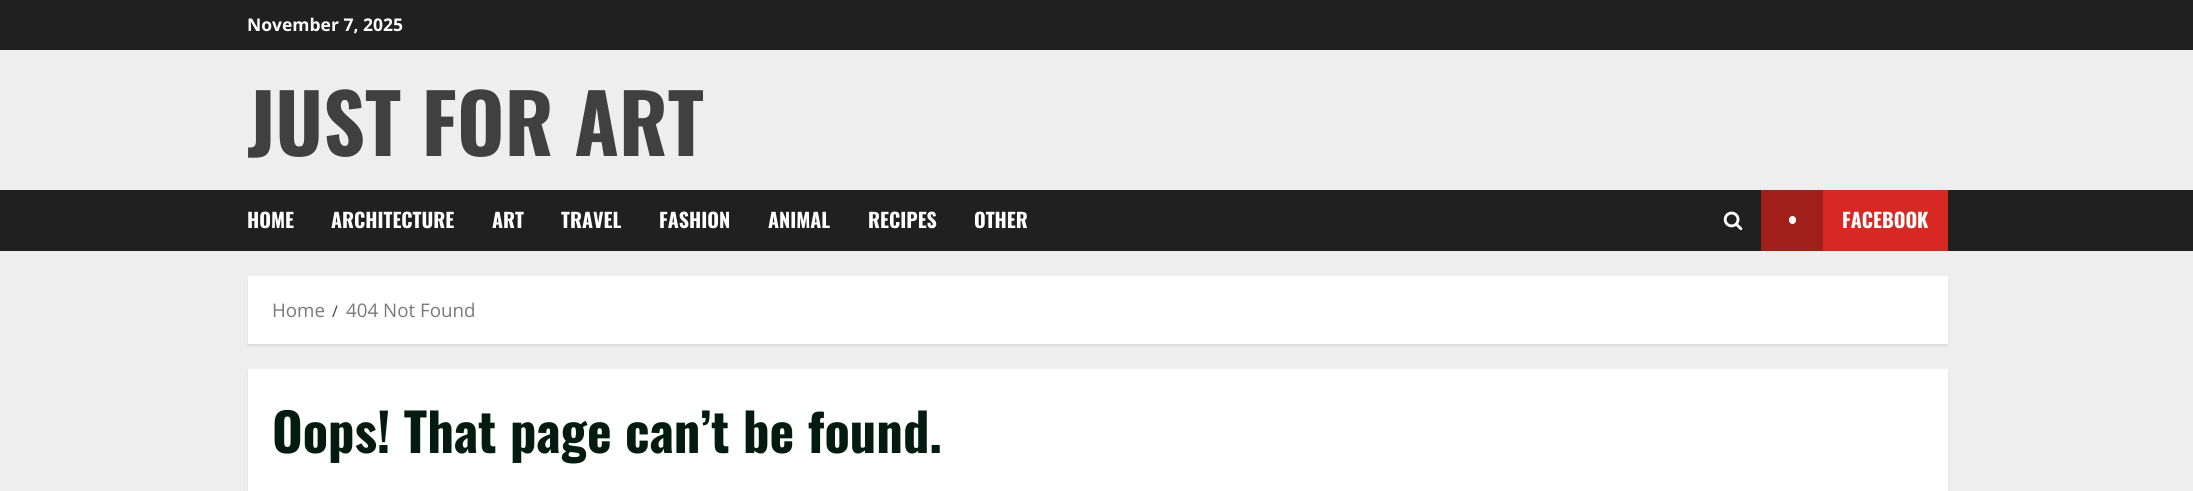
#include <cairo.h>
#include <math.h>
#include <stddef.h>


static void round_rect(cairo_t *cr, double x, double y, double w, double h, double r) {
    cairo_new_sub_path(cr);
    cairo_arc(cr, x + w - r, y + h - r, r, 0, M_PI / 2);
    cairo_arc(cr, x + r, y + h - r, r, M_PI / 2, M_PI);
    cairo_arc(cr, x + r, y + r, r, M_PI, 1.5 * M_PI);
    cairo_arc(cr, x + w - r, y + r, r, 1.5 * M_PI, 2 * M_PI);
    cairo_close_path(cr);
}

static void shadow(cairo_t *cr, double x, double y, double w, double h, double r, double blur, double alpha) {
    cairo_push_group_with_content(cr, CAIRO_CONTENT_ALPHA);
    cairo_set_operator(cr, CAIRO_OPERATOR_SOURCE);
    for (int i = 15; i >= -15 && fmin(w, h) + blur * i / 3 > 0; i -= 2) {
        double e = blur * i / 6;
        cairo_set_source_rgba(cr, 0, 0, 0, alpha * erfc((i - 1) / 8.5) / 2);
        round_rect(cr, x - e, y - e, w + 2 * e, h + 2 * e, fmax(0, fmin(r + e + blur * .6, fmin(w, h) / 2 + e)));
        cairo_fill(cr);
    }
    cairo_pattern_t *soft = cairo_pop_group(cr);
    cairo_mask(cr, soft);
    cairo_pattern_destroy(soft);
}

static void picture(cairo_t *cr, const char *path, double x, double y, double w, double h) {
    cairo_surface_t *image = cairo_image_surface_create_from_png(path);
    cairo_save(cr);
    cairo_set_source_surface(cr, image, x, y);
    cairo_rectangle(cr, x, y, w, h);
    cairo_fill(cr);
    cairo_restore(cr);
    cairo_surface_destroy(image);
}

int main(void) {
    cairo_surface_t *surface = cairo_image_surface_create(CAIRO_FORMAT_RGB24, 2193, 491);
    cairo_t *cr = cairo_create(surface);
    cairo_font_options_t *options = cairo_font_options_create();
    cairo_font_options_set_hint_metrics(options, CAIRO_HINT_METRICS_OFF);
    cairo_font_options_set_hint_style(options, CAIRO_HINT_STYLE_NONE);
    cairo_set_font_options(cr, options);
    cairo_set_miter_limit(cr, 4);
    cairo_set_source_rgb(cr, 0.933, 0.933, 0.933);
    cairo_paint(cr);
    cairo_set_source_rgb(cr, 0.125, 0.125, 0.125);
    cairo_rectangle(cr, 0, 0, 2193, 50);
    cairo_fill(cr);
    cairo_select_font_face(cr, "Open Sans", CAIRO_FONT_SLANT_NORMAL, CAIRO_FONT_WEIGHT_BOLD);
    cairo_set_font_size(cr, 17.5);
    cairo_set_source_rgb(cr, 1, 1, 1);
    cairo_move_to(cr, 247, 31);
    cairo_show_text(cr, "November 7, 2025");
    cairo_select_font_face(cr, "Oswald", CAIRO_FONT_SLANT_NORMAL, CAIRO_FONT_WEIGHT_BOLD);
    cairo_set_font_size(cr, 81.25);
    cairo_set_source_rgb(cr, 0.251, 0.251, 0.251);
    cairo_move_to(cr, 247, 156);
    cairo_show_text(cr, "JUST FOR ART");
    cairo_set_source_rgb(cr, 0.125, 0.125, 0.125);
    cairo_rectangle(cr, 0, 190, 2193, 61);
    cairo_fill(cr);
    cairo_set_font_size(cr, 20);
    cairo_set_source_rgb(cr, 1, 1, 1);
    cairo_move_to(cr, 247, 228);
    cairo_show_text(cr, "HOME");
    cairo_move_to(cr, 331, 228);
    cairo_show_text(cr, "ARCHITECTURE");
    cairo_move_to(cr, 492, 228);
    cairo_show_text(cr, "ART");
    cairo_move_to(cr, 561, 228);
    cairo_show_text(cr, "TRAVEL");
    cairo_move_to(cr, 659, 228);
    cairo_show_text(cr, "FASHION");
    cairo_move_to(cr, 768, 228);
    cairo_show_text(cr, "ANIMAL");
    cairo_move_to(cr, 868, 228);
    cairo_show_text(cr, "RECIPES");
    cairo_move_to(cr, 974, 228);
    cairo_show_text(cr, "OTHER");
    picture(cr, "img1.png", 1723, 211, 20, 20);
    cairo_set_source_rgb(cr, 0.843, 0.161, 0.141);
    cairo_rectangle(cr, 1823, 190, 125, 61);
    cairo_fill(cr);
    cairo_set_source_rgb(cr, 0.631, 0.122, 0.106);
    cairo_rectangle(cr, 1761, 190, 62, 61);
    cairo_fill(cr);
    cairo_set_source_rgb(cr, 1, 1, 1);
    round_rect(cr, 1789, 216, 7, 8, 3.5);
    cairo_fill(cr);
    cairo_move_to(cr, 1842, 228);
    cairo_show_text(cr, "FACEBOOK");
    cairo_set_source_rgb(cr, 0, 0, 0);
    shadow(cr, 248, 279, 1700, 67, 0, 1, 0.08);
    cairo_set_source_rgb(cr, 1, 1, 1);
    cairo_rectangle(cr, 248, 276, 1700, 68);
    cairo_fill(cr);
    cairo_select_font_face(cr, "Open Sans", CAIRO_FONT_SLANT_NORMAL, CAIRO_FONT_WEIGHT_NORMAL);
    cairo_set_font_size(cr, 18.75);
    cairo_set_source_rgb(cr, 0.475, 0.475, 0.475);
    cairo_move_to(cr, 272, 317);
    cairo_show_text(cr, "Home");
    cairo_set_font_size(cr, 16);
    cairo_set_source_rgb(cr, 0.251, 0.251, 0.251);
    cairo_move_to(cr, 332, 317);
    cairo_show_text(cr, "/");
    cairo_set_font_size(cr, 18.75);
    cairo_set_source_rgb(cr, 0.475, 0.475, 0.475);
    cairo_move_to(cr, 346, 317);
    cairo_show_text(cr, "404 Not Found");
    cairo_set_source_rgb(cr, 0, 0, 0);
    shadow(cr, 248, 371, 1700, 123, 0, 1, 0.08);
    cairo_set_source_rgb(cr, 1, 1, 1);
    cairo_rectangle(cr, 248, 369, 1700, 122);
    cairo_fill(cr);
    cairo_select_font_face(cr, "Oswald", CAIRO_FONT_SLANT_NORMAL, CAIRO_FONT_WEIGHT_BOLD);
    cairo_set_font_size(cr, 52.5);
    cairo_set_source_rgb(cr, 0.012, 0.106, 0.067);
    cairo_move_to(cr, 272, 453);
    cairo_show_text(cr, "Oops! That page can’t be found.");
    cairo_surface_write_to_png(surface, "page.png");
    cairo_font_options_destroy(options);
    cairo_destroy(cr);
    cairo_surface_destroy(surface);
    return 0;
}
